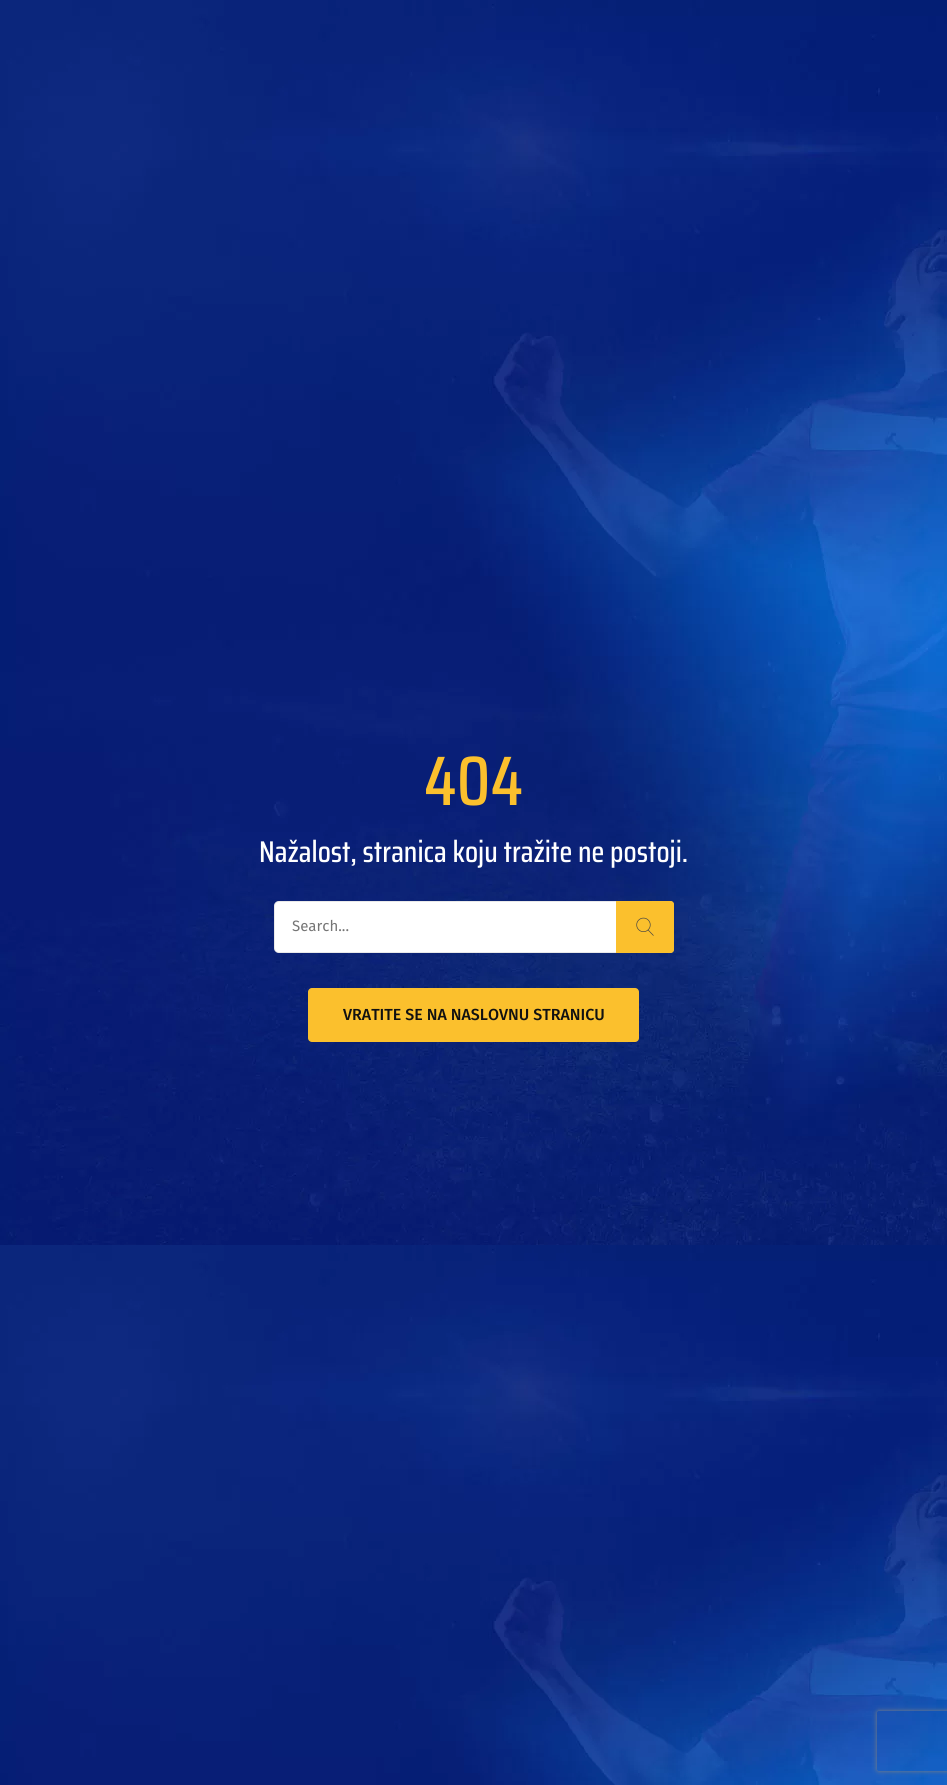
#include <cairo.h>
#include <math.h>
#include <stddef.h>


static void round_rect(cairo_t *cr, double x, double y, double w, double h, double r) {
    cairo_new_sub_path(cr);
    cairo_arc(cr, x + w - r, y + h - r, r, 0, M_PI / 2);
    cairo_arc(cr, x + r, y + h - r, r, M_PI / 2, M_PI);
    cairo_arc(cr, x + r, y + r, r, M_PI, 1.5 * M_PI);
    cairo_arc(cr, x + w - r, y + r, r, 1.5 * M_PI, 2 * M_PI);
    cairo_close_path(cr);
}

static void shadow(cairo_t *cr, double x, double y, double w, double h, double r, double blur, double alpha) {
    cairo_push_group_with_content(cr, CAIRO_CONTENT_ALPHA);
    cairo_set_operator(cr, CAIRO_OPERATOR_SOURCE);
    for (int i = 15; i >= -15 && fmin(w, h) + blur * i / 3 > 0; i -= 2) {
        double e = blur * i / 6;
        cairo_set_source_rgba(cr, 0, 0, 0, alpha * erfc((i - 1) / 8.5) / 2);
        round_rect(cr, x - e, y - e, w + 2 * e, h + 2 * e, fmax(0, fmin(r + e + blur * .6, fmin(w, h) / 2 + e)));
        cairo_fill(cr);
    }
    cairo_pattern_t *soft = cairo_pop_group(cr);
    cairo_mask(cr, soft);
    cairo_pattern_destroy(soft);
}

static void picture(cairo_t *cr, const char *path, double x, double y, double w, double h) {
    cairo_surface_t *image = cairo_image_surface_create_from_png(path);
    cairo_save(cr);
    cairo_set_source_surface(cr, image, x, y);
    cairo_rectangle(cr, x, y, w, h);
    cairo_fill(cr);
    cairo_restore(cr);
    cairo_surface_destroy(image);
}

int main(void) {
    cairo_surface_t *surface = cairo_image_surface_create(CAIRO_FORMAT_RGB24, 947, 1785);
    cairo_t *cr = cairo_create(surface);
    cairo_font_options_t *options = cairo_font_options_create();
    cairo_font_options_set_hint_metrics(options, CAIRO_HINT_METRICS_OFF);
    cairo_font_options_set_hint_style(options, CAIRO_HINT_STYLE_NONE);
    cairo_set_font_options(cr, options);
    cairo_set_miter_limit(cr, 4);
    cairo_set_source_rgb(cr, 1, 1, 1);
    cairo_paint(cr);
    picture(cr, "img1.png", 0, 0, 947, 1785);
    cairo_select_font_face(cr, "Saira Condensed Medium", CAIRO_FONT_SLANT_NORMAL, CAIRO_FONT_WEIGHT_NORMAL);
    cairo_set_font_size(cr, 70);
    cairo_set_source_rgb(cr, 0.984, 0.753, 0.176);
    cairo_move_to(cr, 424, 805);
    cairo_show_text(cr, "404");
    cairo_set_font_size(cr, 30);
    cairo_set_source_rgb(cr, 1, 1, 1);
    cairo_move_to(cr, 259, 862);
    cairo_show_text(cr, "Nažalost, stranica koju tražite ne postoji.");
    round_rect(cr, 274, 901, 400, 52, 5);
    cairo_fill(cr);
    round_rect(cr, 274.5, 901.5, 399, 51, 4.5);
    cairo_set_source_rgba(cr, 0.667, 0.667, 0.667, 0.25);
    cairo_set_line_width(cr, 1);
    cairo_stroke(cr);
    cairo_select_font_face(cr, "Fira Sans", CAIRO_FONT_SLANT_NORMAL, CAIRO_FONT_WEIGHT_NORMAL);
    cairo_set_font_size(cr, 15);
    cairo_set_source_rgb(cr, 0.459, 0.459, 0.459);
    cairo_move_to(cr, 292, 931);
    cairo_show_text(cr, "Search...");
    cairo_set_source_rgb(cr, 0.984, 0.753, 0.176);
    cairo_new_path(cr);
    cairo_move_to(cr, 616, 901);
    cairo_line_to(cr, 671, 901);
    cairo_curve_to(cr, 672.5, 901, 674, 902.5, 674, 904);
    cairo_line_to(cr, 674, 950);
    cairo_curve_to(cr, 674, 951.5, 672.5, 953, 671, 953);
    cairo_line_to(cr, 616, 953);
    cairo_close_path(cr);
    cairo_fill(cr);
    picture(cr, "img2.png", 636, 917, 18, 19);
    round_rect(cr, 308, 988, 331, 54, 4);
    cairo_fill(cr);
    cairo_select_font_face(cr, "Fira Sans Medium", CAIRO_FONT_SLANT_NORMAL, CAIRO_FONT_WEIGHT_NORMAL);
    cairo_set_font_size(cr, 16);
    cairo_set_source_rgb(cr, 0.067, 0.067, 0.067);
    cairo_move_to(cr, 343, 1020);
    cairo_show_text(cr, "VRATITE SE NA NASLOVNU STRANICU");
    cairo_save(cr);
    cairo_set_fill_rule(cr, CAIRO_FILL_RULE_EVEN_ODD);
    cairo_new_path(cr);
    cairo_move_to(cr, 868, 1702);
    cairo_line_to(cr, 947, 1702);
    cairo_line_to(cr, 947, 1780);
    cairo_line_to(cr, 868, 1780);
    cairo_close_path(cr);
    cairo_move_to(cr, 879, 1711);
    cairo_line_to(cr, 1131, 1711);
    cairo_curve_to(cr, 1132, 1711, 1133, 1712, 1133, 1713);
    cairo_line_to(cr, 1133, 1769);
    cairo_curve_to(cr, 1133, 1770, 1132, 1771, 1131, 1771);
    cairo_line_to(cr, 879, 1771);
    cairo_curve_to(cr, 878, 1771, 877, 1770, 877, 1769);
    cairo_line_to(cr, 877, 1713);
    cairo_curve_to(cr, 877, 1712, 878, 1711, 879, 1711);
    cairo_close_path(cr);
    cairo_clip(cr);
    cairo_set_source_rgb(cr, 0.502, 0.502, 0.502);
    shadow(cr, 877, 1711, 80, 60, 2, 2.5, 1);
    cairo_restore(cr);
    cairo_surface_write_to_png(surface, "page.png");
    cairo_font_options_destroy(options);
    cairo_destroy(cr);
    cairo_surface_destroy(surface);
    return 0;
}
